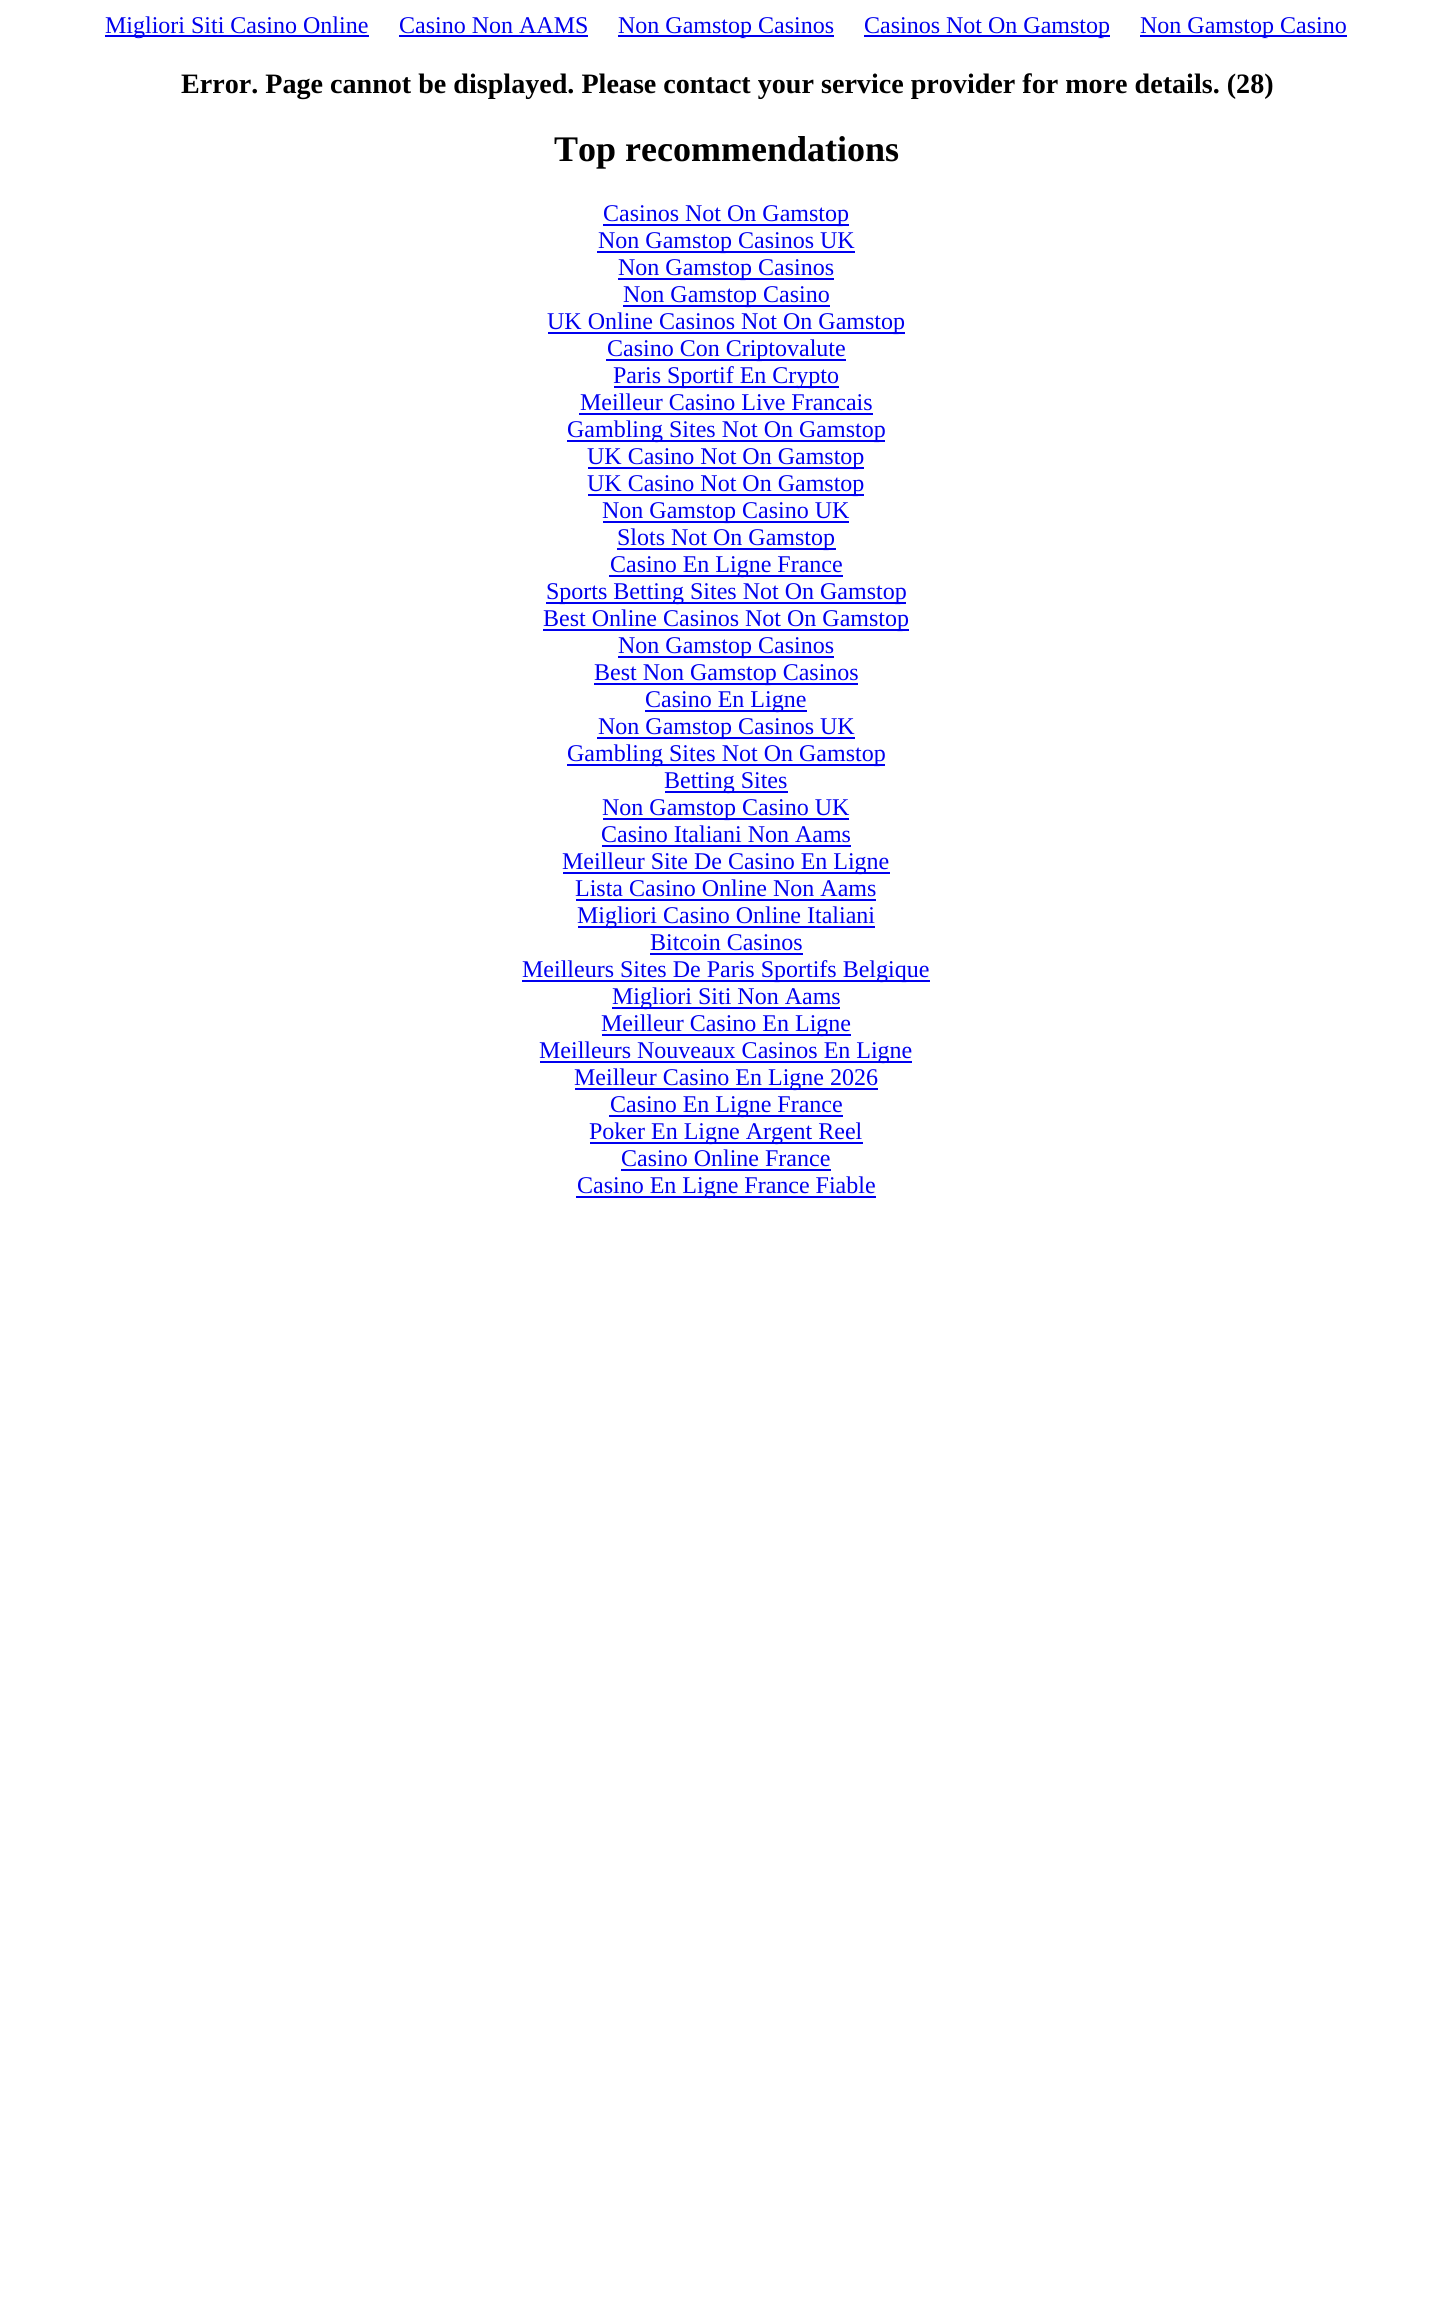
#include <cairo.h>
#include <math.h>
#include <stddef.h>


int main(void) {
    cairo_surface_t *surface = cairo_image_surface_create(CAIRO_FORMAT_RGB24, 1452, 2310);
    cairo_t *cr = cairo_create(surface);
    cairo_font_options_t *options = cairo_font_options_create();
    cairo_font_options_set_hint_metrics(options, CAIRO_HINT_METRICS_OFF);
    cairo_font_options_set_hint_style(options, CAIRO_HINT_STYLE_NONE);
    cairo_set_font_options(cr, options);
    cairo_set_miter_limit(cr, 4);
    cairo_set_source_rgb(cr, 1, 1, 1);
    cairo_paint(cr);
    cairo_set_source_rgb(cr, 0, 0, 0.933);
    cairo_rectangle(cr, 105, 35, 264, 2);
    cairo_fill(cr);
    cairo_select_font_face(cr, "Liberation Serif", CAIRO_FONT_SLANT_NORMAL, CAIRO_FONT_WEIGHT_NORMAL);
    cairo_set_font_size(cr, 24);
    cairo_move_to(cr, 105, 33);
    cairo_show_text(cr, "Migliori Siti Casino Online");
    cairo_move_to(cr, 399, 33);
    cairo_show_text(cr, "Casino Non AAMS");
    cairo_rectangle(cr, 399, 35, 189, 2);
    cairo_fill(cr);
    cairo_rectangle(cr, 618, 35, 216, 2);
    cairo_fill(cr);
    cairo_move_to(cr, 618, 33);
    cairo_show_text(cr, "Non Gamstop Casinos");
    cairo_rectangle(cr, 864, 35, 246, 2);
    cairo_fill(cr);
    cairo_move_to(cr, 864, 33);
    cairo_show_text(cr, "Casinos Not On Gamstop");
    cairo_rectangle(cr, 1140, 35, 207, 2);
    cairo_fill(cr);
    cairo_move_to(cr, 1140, 33);
    cairo_show_text(cr, "Non Gamstop Casino");
    cairo_select_font_face(cr, "Liberation Serif", CAIRO_FONT_SLANT_NORMAL, CAIRO_FONT_WEIGHT_BOLD);
    cairo_set_font_size(cr, 28.1);
    cairo_set_source_rgb(cr, 0, 0, 0);
    cairo_move_to(cr, 181, 93);
    cairo_show_text(cr, "Error. Page cannot be displayed. Please contact your service provider for more details. (28)");
    cairo_set_font_size(cr, 36);
    cairo_move_to(cr, 554, 161);
    cairo_show_text(cr, "Top recommendations");
    cairo_set_source_rgb(cr, 0, 0, 0.933);
    cairo_rectangle(cr, 603, 224, 246, 2);
    cairo_fill(cr);
    cairo_select_font_face(cr, "Liberation Serif", CAIRO_FONT_SLANT_NORMAL, CAIRO_FONT_WEIGHT_NORMAL);
    cairo_set_font_size(cr, 24);
    cairo_move_to(cr, 603, 221);
    cairo_show_text(cr, "Casinos Not On Gamstop");
    cairo_rectangle(cr, 597, 251, 258, 2);
    cairo_fill(cr);
    cairo_move_to(cr, 598, 248);
    cairo_show_text(cr, "Non Gamstop Casinos UK");
    cairo_rectangle(cr, 618, 278, 216, 2);
    cairo_fill(cr);
    cairo_move_to(cr, 618, 275);
    cairo_show_text(cr, "Non Gamstop Casinos");
    cairo_rectangle(cr, 623, 305, 207, 2);
    cairo_fill(cr);
    cairo_move_to(cr, 623, 302);
    cairo_show_text(cr, "Non Gamstop Casino");
    cairo_rectangle(cr, 548, 332, 357, 2);
    cairo_fill(cr);
    cairo_move_to(cr, 547, 329);
    cairo_show_text(cr, "UK Online Casinos Not On Gamstop");
    cairo_rectangle(cr, 606, 359, 240, 2);
    cairo_fill(cr);
    cairo_move_to(cr, 607, 356);
    cairo_show_text(cr, "Casino Con Criptovalute");
    cairo_rectangle(cr, 614, 386, 225, 2);
    cairo_fill(cr);
    cairo_move_to(cr, 613, 383);
    cairo_show_text(cr, "Paris Sportif En Crypto");
    cairo_move_to(cr, 580, 410);
    cairo_show_text(cr, "Meilleur Casino Live Francais");
    cairo_rectangle(cr, 579, 413, 294, 2);
    cairo_fill(cr);
    cairo_rectangle(cr, 567, 440, 318, 2);
    cairo_fill(cr);
    cairo_move_to(cr, 567, 437);
    cairo_show_text(cr, "Gambling Sites Not On Gamstop");
    cairo_rectangle(cr, 588, 467, 276, 2);
    cairo_fill(cr);
    cairo_move_to(cr, 587, 464);
    cairo_show_text(cr, "UK Casino Not On Gamstop");
    cairo_rectangle(cr, 588, 494, 276, 2);
    cairo_fill(cr);
    cairo_move_to(cr, 587, 491);
    cairo_show_text(cr, "UK Casino Not On Gamstop");
    cairo_rectangle(cr, 603, 521, 246, 2);
    cairo_fill(cr);
    cairo_move_to(cr, 602, 518);
    cairo_show_text(cr, "Non Gamstop Casino UK");
    cairo_rectangle(cr, 617, 548, 219, 2);
    cairo_fill(cr);
    cairo_move_to(cr, 617, 545);
    cairo_show_text(cr, "Slots Not On Gamstop");
    cairo_rectangle(cr, 609, 575, 234, 2);
    cairo_fill(cr);
    cairo_move_to(cr, 610, 572);
    cairo_show_text(cr, "Casino En Ligne France");
    cairo_rectangle(cr, 546, 602, 360, 2);
    cairo_fill(cr);
    cairo_move_to(cr, 546, 599);
    cairo_show_text(cr, "Sports Betting Sites Not On Gamstop");
    cairo_rectangle(cr, 543, 629, 366, 2);
    cairo_fill(cr);
    cairo_move_to(cr, 543, 626);
    cairo_show_text(cr, "Best Online Casinos Not On Gamstop");
    cairo_rectangle(cr, 618, 656, 216, 2);
    cairo_fill(cr);
    cairo_move_to(cr, 618, 653);
    cairo_show_text(cr, "Non Gamstop Casinos");
    cairo_rectangle(cr, 594, 683, 264, 2);
    cairo_fill(cr);
    cairo_move_to(cr, 594, 680);
    cairo_show_text(cr, "Best Non Gamstop Casinos");
    cairo_rectangle(cr, 645, 710, 162, 2);
    cairo_fill(cr);
    cairo_move_to(cr, 645, 707);
    cairo_show_text(cr, "Casino En Ligne");
    cairo_rectangle(cr, 597, 737, 258, 2);
    cairo_fill(cr);
    cairo_move_to(cr, 598, 734);
    cairo_show_text(cr, "Non Gamstop Casinos UK");
    cairo_rectangle(cr, 567, 764, 318, 2);
    cairo_fill(cr);
    cairo_move_to(cr, 567, 761);
    cairo_show_text(cr, "Gambling Sites Not On Gamstop");
    cairo_rectangle(cr, 665, 791, 123, 2);
    cairo_fill(cr);
    cairo_move_to(cr, 664, 788);
    cairo_show_text(cr, "Betting Sites");
    cairo_rectangle(cr, 603, 818, 246, 2);
    cairo_fill(cr);
    cairo_move_to(cr, 602, 815);
    cairo_show_text(cr, "Non Gamstop Casino UK");
    cairo_move_to(cr, 601, 842);
    cairo_show_text(cr, "Casino Italiani Non Aams");
    cairo_rectangle(cr, 602, 845, 249, 2);
    cairo_fill(cr);
    cairo_rectangle(cr, 563, 872, 327, 2);
    cairo_fill(cr);
    cairo_move_to(cr, 562, 869);
    cairo_show_text(cr, "Meilleur Site De Casino En Ligne");
    cairo_move_to(cr, 575, 896);
    cairo_show_text(cr, "Lista Casino Online Non Aams");
    cairo_rectangle(cr, 576, 899, 300, 2);
    cairo_fill(cr);
    cairo_rectangle(cr, 578, 926, 297, 2);
    cairo_fill(cr);
    cairo_move_to(cr, 577, 923);
    cairo_show_text(cr, "Migliori Casino Online Italiani");
    cairo_move_to(cr, 650, 950);
    cairo_show_text(cr, "Bitcoin Casinos");
    cairo_rectangle(cr, 650, 953, 153, 2);
    cairo_fill(cr);
    cairo_rectangle(cr, 522, 980, 408, 2);
    cairo_fill(cr);
    cairo_move_to(cr, 522, 977);
    cairo_show_text(cr, "Meilleurs Sites De Paris Sportifs Belgique");
    cairo_rectangle(cr, 612, 1007, 228, 2);
    cairo_fill(cr);
    cairo_move_to(cr, 612, 1004);
    cairo_show_text(cr, "Migliori Siti Non Aams");
    cairo_rectangle(cr, 602, 1034, 249, 2);
    cairo_fill(cr);
    cairo_move_to(cr, 601, 1031);
    cairo_show_text(cr, "Meilleur Casino En Ligne");
    cairo_rectangle(cr, 540, 1061, 372, 2);
    cairo_fill(cr);
    cairo_move_to(cr, 539, 1058);
    cairo_show_text(cr, "Meilleurs Nouveaux Casinos En Ligne");
    cairo_rectangle(cr, 575, 1088, 303, 2);
    cairo_fill(cr);
    cairo_move_to(cr, 574, 1085);
    cairo_show_text(cr, "Meilleur Casino En Ligne 2026");
    cairo_rectangle(cr, 609, 1115, 234, 2);
    cairo_fill(cr);
    cairo_move_to(cr, 610, 1112);
    cairo_show_text(cr, "Casino En Ligne France");
    cairo_rectangle(cr, 590, 1142, 273, 2);
    cairo_fill(cr);
    cairo_move_to(cr, 589, 1139);
    cairo_show_text(cr, "Poker En Ligne Argent Reel");
    cairo_move_to(cr, 621, 1166);
    cairo_show_text(cr, "Casino Online France");
    cairo_rectangle(cr, 621, 1169, 210, 2);
    cairo_fill(cr);
    cairo_rectangle(cr, 576, 1196, 300, 2);
    cairo_fill(cr);
    cairo_move_to(cr, 577, 1193);
    cairo_show_text(cr, "Casino En Ligne France Fiable");
    cairo_surface_write_to_png(surface, "page.png");
    cairo_font_options_destroy(options);
    cairo_destroy(cr);
    cairo_surface_destroy(surface);
    return 0;
}
